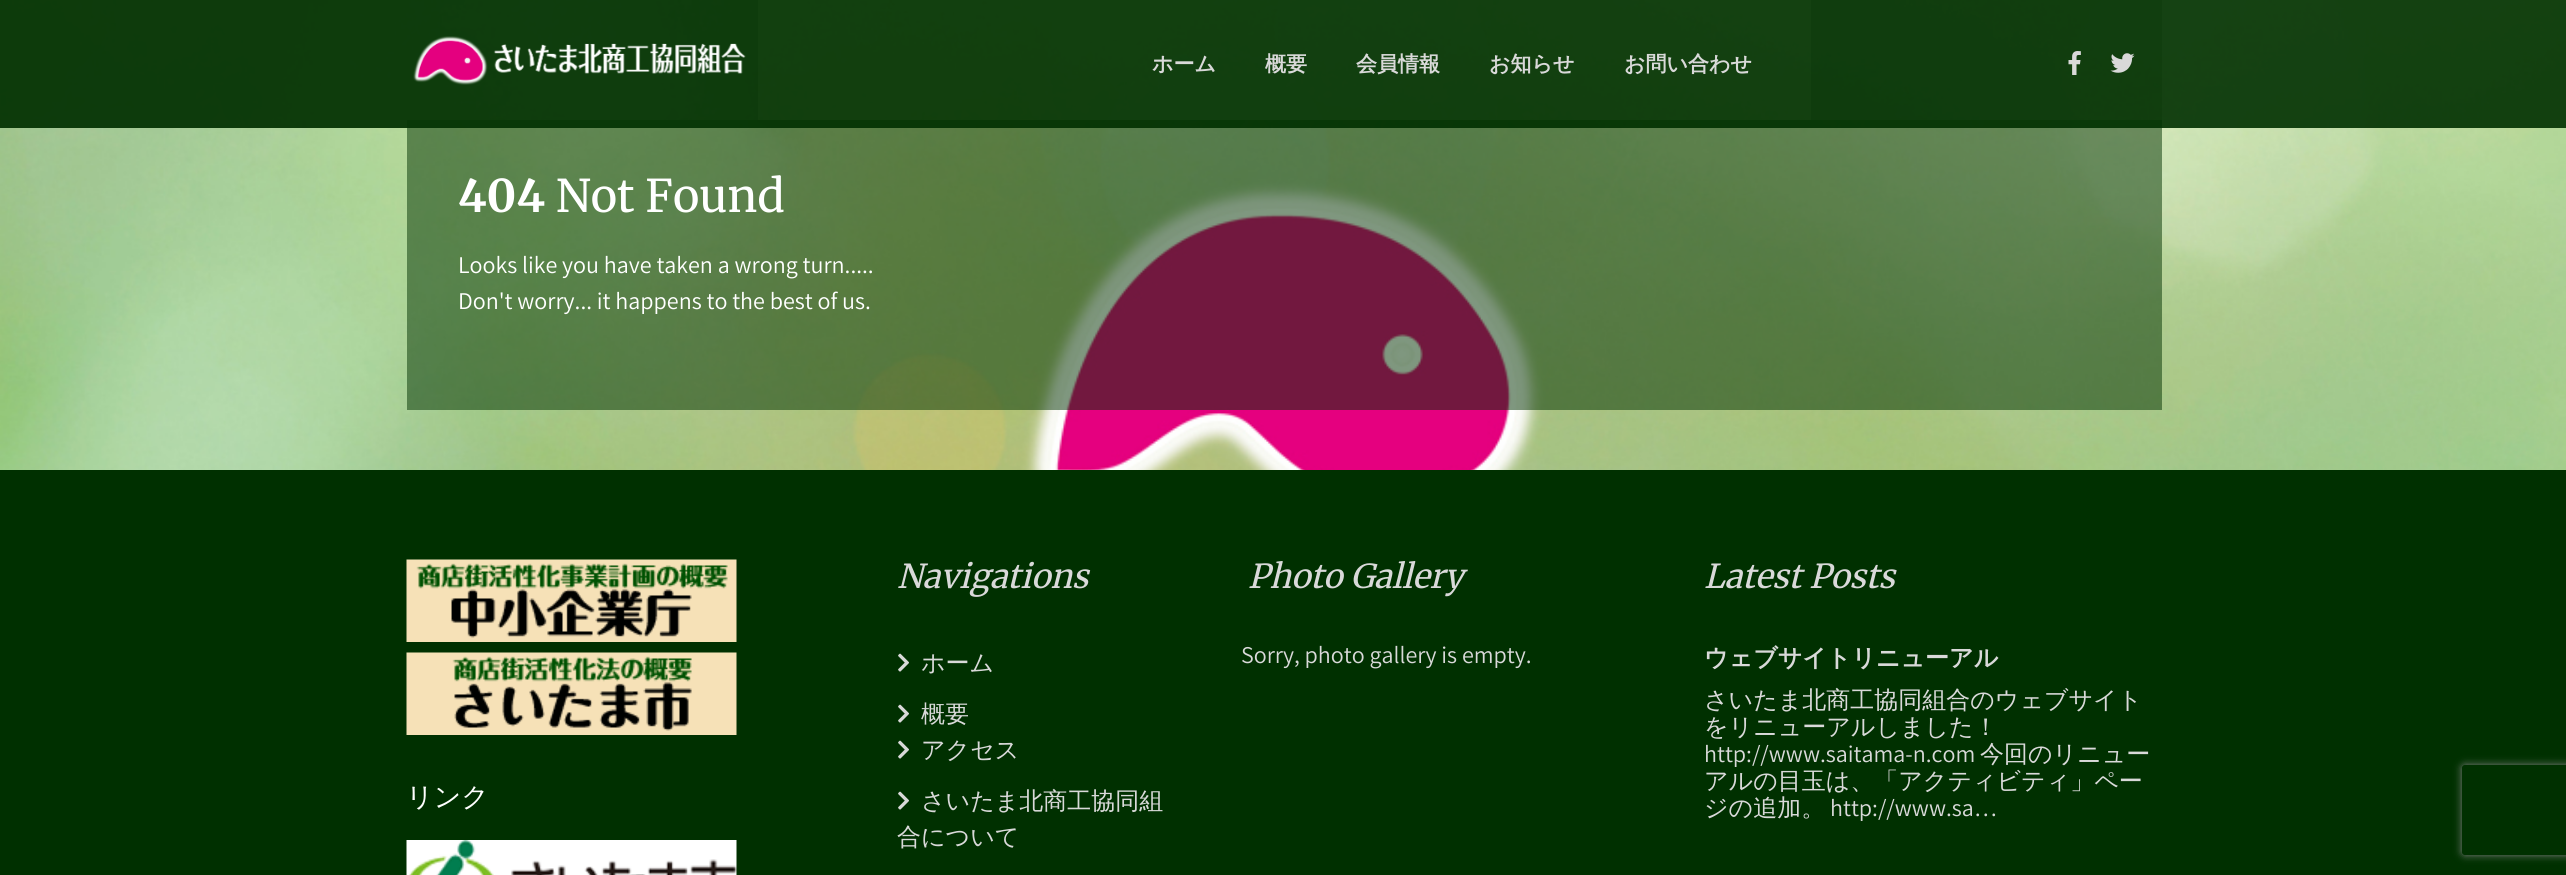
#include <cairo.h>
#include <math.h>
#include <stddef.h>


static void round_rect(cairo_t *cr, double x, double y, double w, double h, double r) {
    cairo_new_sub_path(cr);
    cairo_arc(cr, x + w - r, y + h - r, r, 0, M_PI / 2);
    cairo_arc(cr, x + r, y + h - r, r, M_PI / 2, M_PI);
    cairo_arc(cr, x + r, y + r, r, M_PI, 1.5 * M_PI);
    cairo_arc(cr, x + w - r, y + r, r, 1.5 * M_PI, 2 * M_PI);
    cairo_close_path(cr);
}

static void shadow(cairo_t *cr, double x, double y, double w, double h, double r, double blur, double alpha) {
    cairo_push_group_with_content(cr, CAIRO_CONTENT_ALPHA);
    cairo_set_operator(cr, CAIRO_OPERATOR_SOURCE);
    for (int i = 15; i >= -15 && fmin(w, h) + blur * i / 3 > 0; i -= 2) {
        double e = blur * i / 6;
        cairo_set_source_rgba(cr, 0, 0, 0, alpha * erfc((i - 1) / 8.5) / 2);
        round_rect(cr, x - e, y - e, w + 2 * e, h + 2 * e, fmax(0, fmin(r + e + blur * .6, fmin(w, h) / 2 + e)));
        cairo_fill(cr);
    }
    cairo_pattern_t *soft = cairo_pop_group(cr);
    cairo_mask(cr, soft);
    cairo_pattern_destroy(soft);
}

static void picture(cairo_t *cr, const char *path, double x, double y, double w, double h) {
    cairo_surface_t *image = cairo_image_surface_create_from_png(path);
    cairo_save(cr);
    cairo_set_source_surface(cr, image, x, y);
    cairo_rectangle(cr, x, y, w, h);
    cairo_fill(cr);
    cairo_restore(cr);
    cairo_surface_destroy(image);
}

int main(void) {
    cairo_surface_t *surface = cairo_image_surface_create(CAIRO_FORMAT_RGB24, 2566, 875);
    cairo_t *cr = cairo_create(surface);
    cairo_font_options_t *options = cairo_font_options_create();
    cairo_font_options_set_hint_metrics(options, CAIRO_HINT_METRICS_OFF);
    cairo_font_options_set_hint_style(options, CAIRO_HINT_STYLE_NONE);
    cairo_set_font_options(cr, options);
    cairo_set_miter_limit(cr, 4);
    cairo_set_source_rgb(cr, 1, 1, 1);
    cairo_paint(cr);
    picture(cr, "img1.png", 0, 0, 2566, 470);
    cairo_set_source_rgba(cr, 0, 0.188, 0, 0.5);
    cairo_rectangle(cr, 407, 120, 1755, 290);
    cairo_fill(cr);
    cairo_set_source_rgba(cr, 0, 0.188, 0, 0.9);
    cairo_rectangle(cr, 0, 0, 2566, 128);
    cairo_fill(cr);
    cairo_set_source_rgba(cr, 0, 0.188, 0, 0.2);
    cairo_rectangle(cr, 407, 0, 351, 120);
    cairo_fill(cr);
    cairo_rectangle(cr, 0, 0, 407, 128);
    cairo_fill(cr);
    picture(cr, "img2.png", 413, 36, 333, 49);
    cairo_select_font_face(cr, "WenQuanYi Zen Hei", CAIRO_FONT_SLANT_NORMAL, CAIRO_FONT_WEIGHT_BOLD);
    cairo_set_font_size(cr, 21);
    cairo_set_source_rgb(cr, 0.851, 0.851, 0.851);
    cairo_move_to(cr, 1152, 71);
    cairo_show_text(cr, "ホーム");
    cairo_move_to(cr, 1265, 71);
    cairo_show_text(cr, "概要");
    cairo_move_to(cr, 1356, 71);
    cairo_show_text(cr, "会員情報");
    cairo_move_to(cr, 1489, 71);
    cairo_show_text(cr, "お知らせ");
    cairo_move_to(cr, 1624, 71);
    cairo_show_text(cr, "お問い合わせ");
    cairo_set_source_rgba(cr, 0, 0.188, 0, 0.2);
    cairo_rectangle(cr, 1811, 0, 351, 120);
    cairo_fill(cr);
    picture(cr, "img3.png", 2068, 51, 13, 24);
    picture(cr, "img4.png", 2110, 53, 25, 20);
    cairo_select_font_face(cr, "Merriweather", CAIRO_FONT_SLANT_NORMAL, CAIRO_FONT_WEIGHT_BOLD);
    cairo_set_font_size(cr, 45);
    cairo_set_source_rgb(cr, 1, 1, 1);
    cairo_move_to(cr, 458, 212);
    cairo_show_text(cr, "404");
    cairo_select_font_face(cr, "Merriweather", CAIRO_FONT_SLANT_NORMAL, CAIRO_FONT_WEIGHT_NORMAL);
    cairo_move_to(cr, 556, 212);
    cairo_show_text(cr, "Not Found");
    cairo_select_font_face(cr, "Assistant", CAIRO_FONT_SLANT_NORMAL, CAIRO_FONT_WEIGHT_NORMAL);
    cairo_set_font_size(cr, 24);
    cairo_move_to(cr, 458, 273);
    cairo_show_text(cr, "Looks like you have taken a wrong turn.....");
    cairo_move_to(cr, 458, 309);
    cairo_show_text(cr, "Don't worry... it happens to the best of us.");
    cairo_set_source_rgb(cr, 0, 0.188, 0);
    cairo_rectangle(cr, 0, 470, 2566, 405);
    cairo_fill(cr);
    picture(cr, "img5.png", 406, 559, 331, 83);
    picture(cr, "img6.png", 406, 652, 331, 83);
    cairo_select_font_face(cr, "WenQuanYi Zen Hei Medium", CAIRO_FONT_SLANT_NORMAL, CAIRO_FONT_WEIGHT_NORMAL);
    cairo_set_font_size(cr, 27);
    cairo_set_source_rgb(cr, 1, 1, 1);
    cairo_move_to(cr, 406, 806);
    cairo_show_text(cr, "リンク");
    picture(cr, "img7.png", 406, 840, 331, 35);
    cairo_select_font_face(cr, "Merriweather", CAIRO_FONT_SLANT_ITALIC, CAIRO_FONT_WEIGHT_NORMAL);
    cairo_set_font_size(cr, 33);
    cairo_set_source_rgb(cr, 0.851, 0.851, 0.851);
    cairo_move_to(cr, 897, 588);
    cairo_show_text(cr, "Navigations");
    picture(cr, "img8.png", 898, 653, 11, 19);
    cairo_select_font_face(cr, "WenQuanYi Zen Hei Medium", CAIRO_FONT_SLANT_NORMAL, CAIRO_FONT_WEIGHT_NORMAL);
    cairo_set_font_size(cr, 24);
    cairo_move_to(cr, 921, 671);
    cairo_show_text(cr, "ホーム");
    picture(cr, "img8.png", 898, 704, 11, 19);
    cairo_move_to(cr, 921, 722);
    cairo_show_text(cr, "概要");
    picture(cr, "img8.png", 898, 740, 11, 19);
    cairo_move_to(cr, 921, 758);
    cairo_show_text(cr, "アクセス");
    picture(cr, "img8.png", 898, 791, 11, 19);
    cairo_move_to(cr, 921, 809);
    cairo_show_text(cr, "さいたま北商工協同組");
    cairo_move_to(cr, 897, 845);
    cairo_show_text(cr, "合について");
    cairo_select_font_face(cr, "Merriweather", CAIRO_FONT_SLANT_ITALIC, CAIRO_FONT_WEIGHT_NORMAL);
    cairo_set_font_size(cr, 33);
    cairo_move_to(cr, 1248, 588);
    cairo_show_text(cr, "Photo Gallery");
    cairo_select_font_face(cr, "Assistant", CAIRO_FONT_SLANT_NORMAL, CAIRO_FONT_WEIGHT_NORMAL);
    cairo_set_font_size(cr, 24);
    cairo_move_to(cr, 1241, 663);
    cairo_show_text(cr, "Sorry, photo gallery is empty.");
    cairo_select_font_face(cr, "Merriweather", CAIRO_FONT_SLANT_ITALIC, CAIRO_FONT_WEIGHT_NORMAL);
    cairo_set_font_size(cr, 33);
    cairo_move_to(cr, 1704, 588);
    cairo_show_text(cr, "Latest Posts");
    cairo_select_font_face(cr, "WenQuanYi Zen Hei", CAIRO_FONT_SLANT_NORMAL, CAIRO_FONT_WEIGHT_BOLD);
    cairo_set_font_size(cr, 24);
    cairo_move_to(cr, 1704, 666);
    cairo_show_text(cr, "ウェブサイトリニューアル");
    cairo_select_font_face(cr, "WenQuanYi Zen Hei Medium", CAIRO_FONT_SLANT_NORMAL, CAIRO_FONT_WEIGHT_NORMAL);
    cairo_move_to(cr, 1704, 708);
    cairo_show_text(cr, "さいたま北商工協同組合のウェブサイト");
    cairo_move_to(cr, 1704, 735);
    cairo_show_text(cr, "をリニューアルしました！");
    cairo_select_font_face(cr, "Assistant", CAIRO_FONT_SLANT_NORMAL, CAIRO_FONT_WEIGHT_NORMAL);
    cairo_move_to(cr, 1704, 762);
    cairo_show_text(cr, "http://www.saitama-n.com");
    cairo_select_font_face(cr, "WenQuanYi Zen Hei Medium", CAIRO_FONT_SLANT_NORMAL, CAIRO_FONT_WEIGHT_NORMAL);
    cairo_move_to(cr, 1980, 762);
    cairo_show_text(cr, "今回のリニュー");
    cairo_move_to(cr, 1704, 789);
    cairo_show_text(cr, "アルの目玉は、「アクティビティ」ペー");
    cairo_move_to(cr, 1704, 816);
    cairo_show_text(cr, "ジの追加。");
    cairo_select_font_face(cr, "Assistant", CAIRO_FONT_SLANT_NORMAL, CAIRO_FONT_WEIGHT_NORMAL);
    cairo_move_to(cr, 1830, 816);
    cairo_show_text(cr, "http://www.sa…");
    cairo_save(cr);
    cairo_set_fill_rule(cr, CAIRO_FILL_RULE_EVEN_ODD);
    cairo_new_path(cr);
    cairo_move_to(cr, 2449, 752);
    cairo_line_to(cr, 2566, 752);
    cairo_line_to(cr, 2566, 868);
    cairo_line_to(cr, 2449, 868);
    cairo_close_path(cr);
    cairo_move_to(cr, 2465, 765);
    cairo_line_to(cr, 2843, 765);
    cairo_curve_to(cr, 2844.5, 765, 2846, 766.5, 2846, 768);
    cairo_line_to(cr, 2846, 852);
    cairo_curve_to(cr, 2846, 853.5, 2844.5, 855, 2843, 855);
    cairo_line_to(cr, 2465, 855);
    cairo_curve_to(cr, 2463.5, 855, 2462, 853.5, 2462, 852);
    cairo_line_to(cr, 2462, 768);
    cairo_curve_to(cr, 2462, 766.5, 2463.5, 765, 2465, 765);
    cairo_close_path(cr);
    cairo_clip(cr);
    cairo_set_source_rgb(cr, 0.502, 0.502, 0.502);
    shadow(cr, 2462, 765, 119, 90, 3, 4, 1);
    cairo_restore(cr);
    cairo_surface_write_to_png(surface, "page.png");
    cairo_font_options_destroy(options);
    cairo_destroy(cr);
    cairo_surface_destroy(surface);
    return 0;
}
